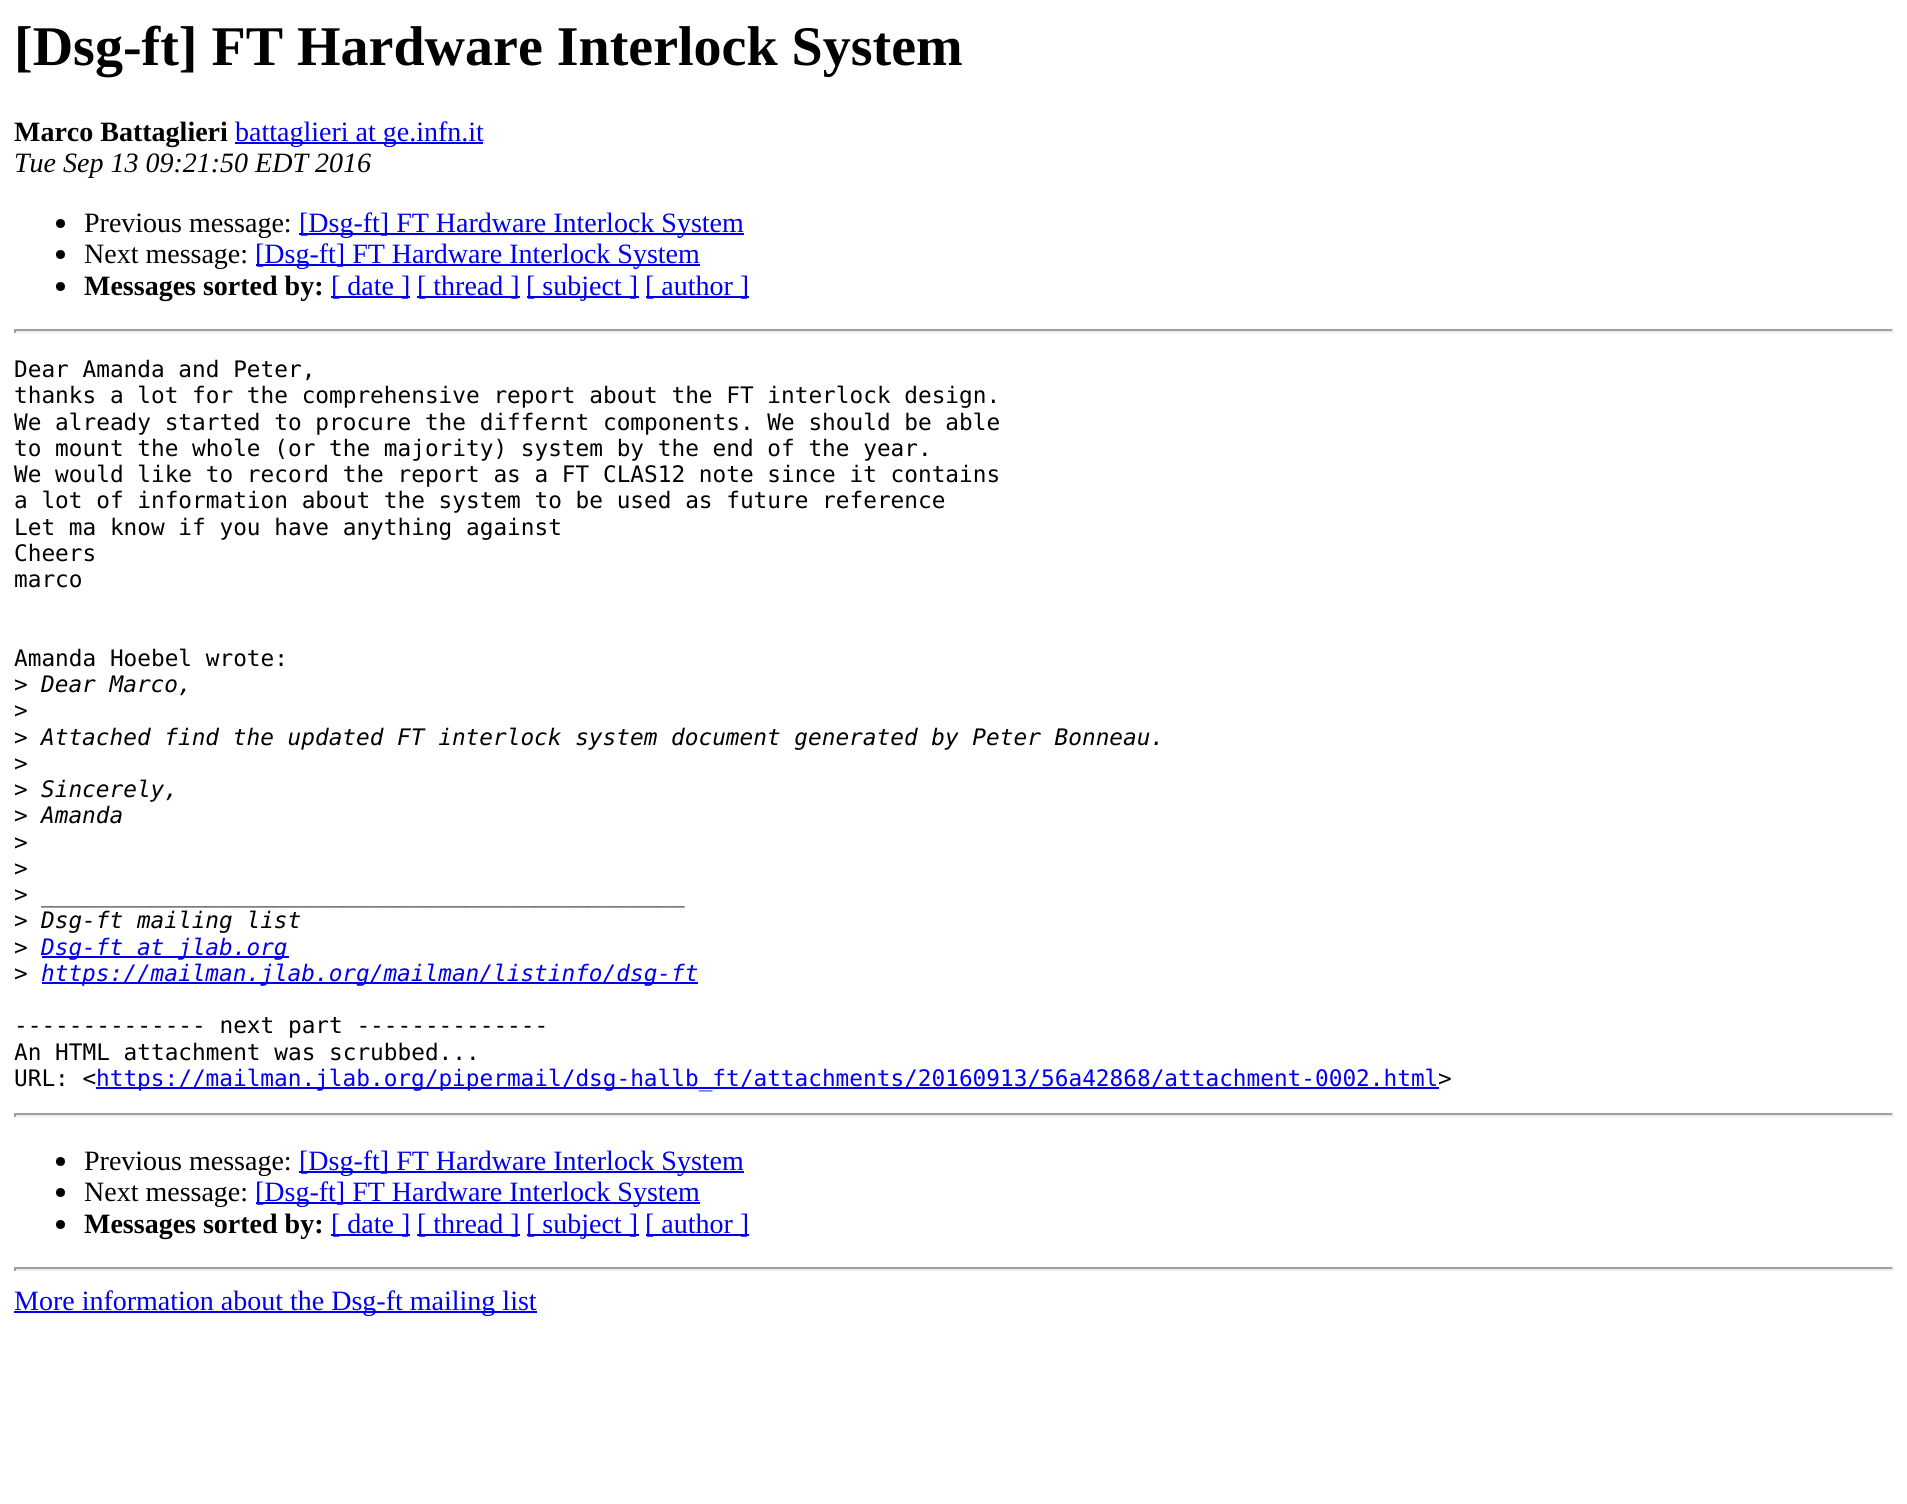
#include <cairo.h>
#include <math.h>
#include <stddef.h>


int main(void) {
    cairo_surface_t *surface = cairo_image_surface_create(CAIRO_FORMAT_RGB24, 1907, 1504);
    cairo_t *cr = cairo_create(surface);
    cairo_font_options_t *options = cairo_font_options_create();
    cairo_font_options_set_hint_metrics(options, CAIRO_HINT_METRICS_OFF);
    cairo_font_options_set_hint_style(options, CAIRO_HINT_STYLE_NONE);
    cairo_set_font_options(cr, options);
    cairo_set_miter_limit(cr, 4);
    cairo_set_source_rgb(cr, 1, 1, 1);
    cairo_paint(cr);
    cairo_select_font_face(cr, "Liberation Serif", CAIRO_FONT_SLANT_NORMAL, CAIRO_FONT_WEIGHT_BOLD);
    cairo_set_font_size(cr, 56);
    cairo_set_source_rgb(cr, 0, 0, 0);
    cairo_move_to(cr, 14, 65);
    cairo_show_text(cr, "[Dsg-ft] FT Hardware Interlock System");
    cairo_set_font_size(cr, 28);
    cairo_move_to(cr, 14, 141);
    cairo_show_text(cr, "Marco Battaglieri");
    cairo_set_source_rgb(cr, 0, 0, 0.933);
    cairo_rectangle(cr, 235, 142, 248, 2);
    cairo_fill(cr);
    cairo_select_font_face(cr, "Liberation Serif", CAIRO_FONT_SLANT_NORMAL, CAIRO_FONT_WEIGHT_NORMAL);
    cairo_move_to(cr, 235, 141);
    cairo_show_text(cr, "battaglieri at ge.infn.it");
    cairo_select_font_face(cr, "Liberation Serif", CAIRO_FONT_SLANT_ITALIC, CAIRO_FONT_WEIGHT_NORMAL);
    cairo_set_source_rgb(cr, 0, 0, 0);
    cairo_move_to(cr, 14, 172);
    cairo_show_text(cr, "Tue Sep 13 09:21:50 EDT 2016");
    cairo_new_path(cr);
    cairo_arc(cr, 60.5, 223.5, 4.5, 0, 2 * M_PI);
    cairo_fill(cr);
    cairo_select_font_face(cr, "Liberation Serif", CAIRO_FONT_SLANT_NORMAL, CAIRO_FONT_WEIGHT_NORMAL);
    cairo_move_to(cr, 84, 232);
    cairo_show_text(cr, "Previous message:");
    cairo_set_source_rgb(cr, 0, 0, 0.933);
    cairo_rectangle(cr, 299, 233, 445, 2);
    cairo_fill(cr);
    cairo_move_to(cr, 299, 232);
    cairo_show_text(cr, "[Dsg-ft] FT Hardware Interlock System");
    cairo_set_source_rgb(cr, 0, 0, 0);
    cairo_new_path(cr);
    cairo_arc(cr, 60.5, 254.5, 4.5, 0, 2 * M_PI);
    cairo_fill(cr);
    cairo_move_to(cr, 84, 263);
    cairo_show_text(cr, "Next message:");
    cairo_set_source_rgb(cr, 0, 0, 0.933);
    cairo_rectangle(cr, 256, 264, 444, 2);
    cairo_fill(cr);
    cairo_move_to(cr, 255, 263);
    cairo_show_text(cr, "[Dsg-ft] FT Hardware Interlock System");
    cairo_set_source_rgb(cr, 0, 0, 0);
    cairo_new_path(cr);
    cairo_arc(cr, 60.5, 286.5, 4.5, 0, 2 * M_PI);
    cairo_fill(cr);
    cairo_select_font_face(cr, "Liberation Serif", CAIRO_FONT_SLANT_NORMAL, CAIRO_FONT_WEIGHT_BOLD);
    cairo_move_to(cr, 84, 295);
    cairo_show_text(cr, "Messages sorted by:");
    cairo_set_source_rgb(cr, 0, 0, 0.933);
    cairo_rectangle(cr, 331, 296, 79, 2);
    cairo_fill(cr);
    cairo_select_font_face(cr, "Liberation Serif", CAIRO_FONT_SLANT_NORMAL, CAIRO_FONT_WEIGHT_NORMAL);
    cairo_move_to(cr, 331, 295);
    cairo_show_text(cr, "[ date ]");
    cairo_rectangle(cr, 417, 296, 103, 2);
    cairo_fill(cr);
    cairo_move_to(cr, 417, 295);
    cairo_show_text(cr, "[ thread ]");
    cairo_rectangle(cr, 527, 296, 112, 2);
    cairo_fill(cr);
    cairo_move_to(cr, 526, 295);
    cairo_show_text(cr, "[ subject ]");
    cairo_rectangle(cr, 646, 296, 103, 2);
    cairo_fill(cr);
    cairo_move_to(cr, 645, 295);
    cairo_show_text(cr, "[ author ]");
    cairo_set_source_rgb(cr, 0.624, 0.624, 0.624);
    cairo_rectangle(cr, 14, 329, 1880, 2);
    cairo_fill(cr);
    cairo_set_source_rgb(cr, 0.933, 0.933, 0.933);
    cairo_rectangle(cr, 1892, 329, 2, 4);
    cairo_fill(cr);
    cairo_rectangle(cr, 14, 331, 1880, 2);
    cairo_fill(cr);
    cairo_set_source_rgb(cr, 0.624, 0.624, 0.624);
    cairo_rectangle(cr, 14, 329, 2, 4);
    cairo_fill(cr);
    cairo_select_font_face(cr, "DejaVu Sans Mono", CAIRO_FONT_SLANT_NORMAL, CAIRO_FONT_WEIGHT_NORMAL);
    cairo_set_font_size(cr, 22.75);
    cairo_set_source_rgb(cr, 0, 0, 0);
    cairo_move_to(cr, 14, 377);
    cairo_show_text(cr, "Dear Amanda and Peter,");
    cairo_move_to(cr, 14, 403);
    cairo_show_text(cr, "thanks a lot for the comprehensive report about the FT interlock design.");
    cairo_move_to(cr, 14, 430);
    cairo_show_text(cr, "We already started to procure the differnt components. We should be able");
    cairo_move_to(cr, 14, 456);
    cairo_show_text(cr, "to mount the whole (or the majority) system by the end of the year.");
    cairo_move_to(cr, 14, 482);
    cairo_show_text(cr, "We would like to record the report as a FT CLAS12 note since it contains");
    cairo_move_to(cr, 14, 508);
    cairo_show_text(cr, "a lot of information about the system to be used as future reference");
    cairo_move_to(cr, 14, 535);
    cairo_show_text(cr, "Let ma know if you have anything against");
    cairo_move_to(cr, 14, 561);
    cairo_show_text(cr, "Cheers");
    cairo_move_to(cr, 14, 587);
    cairo_show_text(cr, "marco");
    cairo_move_to(cr, 14, 666);
    cairo_show_text(cr, "Amanda Hoebel wrote:");
    cairo_move_to(cr, 14, 692);
    cairo_show_text(cr, ">");
    cairo_select_font_face(cr, "DejaVu Sans Mono", CAIRO_FONT_SLANT_ITALIC, CAIRO_FONT_WEIGHT_NORMAL);
    cairo_move_to(cr, 41, 692);
    cairo_show_text(cr, "Dear Marco,");
    cairo_select_font_face(cr, "DejaVu Sans Mono", CAIRO_FONT_SLANT_NORMAL, CAIRO_FONT_WEIGHT_NORMAL);
    cairo_move_to(cr, 14, 718);
    cairo_show_text(cr, ">");
    cairo_move_to(cr, 14, 745);
    cairo_show_text(cr, ">");
    cairo_select_font_face(cr, "DejaVu Sans Mono", CAIRO_FONT_SLANT_ITALIC, CAIRO_FONT_WEIGHT_NORMAL);
    cairo_move_to(cr, 41, 745);
    cairo_show_text(cr, "Attached find the updated FT interlock system document generated by Peter Bonneau.");
    cairo_select_font_face(cr, "DejaVu Sans Mono", CAIRO_FONT_SLANT_NORMAL, CAIRO_FONT_WEIGHT_NORMAL);
    cairo_move_to(cr, 14, 771);
    cairo_show_text(cr, ">");
    cairo_move_to(cr, 14, 797);
    cairo_show_text(cr, ">");
    cairo_select_font_face(cr, "DejaVu Sans Mono", CAIRO_FONT_SLANT_ITALIC, CAIRO_FONT_WEIGHT_NORMAL);
    cairo_move_to(cr, 41, 797);
    cairo_show_text(cr, "Sincerely,");
    cairo_select_font_face(cr, "DejaVu Sans Mono", CAIRO_FONT_SLANT_NORMAL, CAIRO_FONT_WEIGHT_NORMAL);
    cairo_move_to(cr, 14, 823);
    cairo_show_text(cr, ">");
    cairo_select_font_face(cr, "DejaVu Sans Mono", CAIRO_FONT_SLANT_ITALIC, CAIRO_FONT_WEIGHT_NORMAL);
    cairo_move_to(cr, 41, 823);
    cairo_show_text(cr, "Amanda");
    cairo_select_font_face(cr, "DejaVu Sans Mono", CAIRO_FONT_SLANT_NORMAL, CAIRO_FONT_WEIGHT_NORMAL);
    cairo_move_to(cr, 14, 850);
    cairo_show_text(cr, ">");
    cairo_move_to(cr, 14, 876);
    cairo_show_text(cr, ">");
    cairo_move_to(cr, 14, 902);
    cairo_show_text(cr, ">");
    cairo_select_font_face(cr, "DejaVu Sans Mono", CAIRO_FONT_SLANT_ITALIC, CAIRO_FONT_WEIGHT_NORMAL);
    cairo_move_to(cr, 41, 902);
    cairo_show_text(cr, "_______________________________________________");
    cairo_select_font_face(cr, "DejaVu Sans Mono", CAIRO_FONT_SLANT_NORMAL, CAIRO_FONT_WEIGHT_NORMAL);
    cairo_move_to(cr, 14, 928);
    cairo_show_text(cr, ">");
    cairo_select_font_face(cr, "DejaVu Sans Mono", CAIRO_FONT_SLANT_ITALIC, CAIRO_FONT_WEIGHT_NORMAL);
    cairo_move_to(cr, 41, 928);
    cairo_show_text(cr, "Dsg-ft mailing list");
    cairo_select_font_face(cr, "DejaVu Sans Mono", CAIRO_FONT_SLANT_NORMAL, CAIRO_FONT_WEIGHT_NORMAL);
    cairo_move_to(cr, 14, 955);
    cairo_show_text(cr, ">");
    cairo_set_source_rgb(cr, 0, 0, 0.933);
    cairo_rectangle(cr, 42, 956, 247, 2);
    cairo_fill(cr);
    cairo_select_font_face(cr, "DejaVu Sans Mono", CAIRO_FONT_SLANT_ITALIC, CAIRO_FONT_WEIGHT_NORMAL);
    cairo_move_to(cr, 41, 955);
    cairo_show_text(cr, "Dsg-ft at jlab.org");
    cairo_select_font_face(cr, "DejaVu Sans Mono", CAIRO_FONT_SLANT_NORMAL, CAIRO_FONT_WEIGHT_NORMAL);
    cairo_set_source_rgb(cr, 0, 0, 0);
    cairo_move_to(cr, 14, 981);
    cairo_show_text(cr, ">");
    cairo_set_source_rgb(cr, 0, 0, 0.933);
    cairo_rectangle(cr, 42, 982, 656, 2);
    cairo_fill(cr);
    cairo_select_font_face(cr, "DejaVu Sans Mono", CAIRO_FONT_SLANT_ITALIC, CAIRO_FONT_WEIGHT_NORMAL);
    cairo_move_to(cr, 41, 981);
    cairo_show_text(cr, "https://mailman.jlab.org/mailman/listinfo/dsg-ft");
    cairo_select_font_face(cr, "DejaVu Sans Mono", CAIRO_FONT_SLANT_NORMAL, CAIRO_FONT_WEIGHT_NORMAL);
    cairo_set_source_rgb(cr, 0, 0, 0);
    cairo_move_to(cr, 14, 1033);
    cairo_show_text(cr, "-------------- next part --------------");
    cairo_move_to(cr, 14, 1060);
    cairo_show_text(cr, "An HTML attachment was scrubbed...");
    cairo_move_to(cr, 14, 1086);
    cairo_show_text(cr, "URL: <");
    cairo_set_source_rgb(cr, 0, 0, 0.933);
    cairo_rectangle(cr, 96, 1087, 1343, 2);
    cairo_fill(cr);
    cairo_move_to(cr, 96, 1086);
    cairo_show_text(cr, "https://mailman.jlab.org/pipermail/dsg-hallb_ft/attachments/20160913/56a42868/attachment-0002.html");
    cairo_set_source_rgb(cr, 0, 0, 0);
    cairo_move_to(cr, 1438, 1086);
    cairo_show_text(cr, ">");
    cairo_set_source_rgb(cr, 0.624, 0.624, 0.624);
    cairo_rectangle(cr, 14, 1113, 1880, 2);
    cairo_fill(cr);
    cairo_set_source_rgb(cr, 0.933, 0.933, 0.933);
    cairo_rectangle(cr, 1892, 1113, 2, 4);
    cairo_fill(cr);
    cairo_rectangle(cr, 14, 1115, 1880, 2);
    cairo_fill(cr);
    cairo_set_source_rgb(cr, 0.624, 0.624, 0.624);
    cairo_rectangle(cr, 14, 1113, 2, 4);
    cairo_fill(cr);
    cairo_set_source_rgb(cr, 0, 0, 0);
    cairo_arc(cr, 60.5, 1161.5, 4.5, 0, 2 * M_PI);
    cairo_fill(cr);
    cairo_select_font_face(cr, "Liberation Serif", CAIRO_FONT_SLANT_NORMAL, CAIRO_FONT_WEIGHT_NORMAL);
    cairo_set_font_size(cr, 28);
    cairo_move_to(cr, 84, 1170);
    cairo_show_text(cr, "Previous message:");
    cairo_set_source_rgb(cr, 0, 0, 0.933);
    cairo_rectangle(cr, 299, 1171, 445, 2);
    cairo_fill(cr);
    cairo_move_to(cr, 299, 1170);
    cairo_show_text(cr, "[Dsg-ft] FT Hardware Interlock System");
    cairo_set_source_rgb(cr, 0, 0, 0);
    cairo_new_path(cr);
    cairo_arc(cr, 60.5, 1192.5, 4.5, 0, 2 * M_PI);
    cairo_fill(cr);
    cairo_move_to(cr, 84, 1201);
    cairo_show_text(cr, "Next message:");
    cairo_set_source_rgb(cr, 0, 0, 0.933);
    cairo_rectangle(cr, 256, 1202, 444, 2);
    cairo_fill(cr);
    cairo_move_to(cr, 255, 1201);
    cairo_show_text(cr, "[Dsg-ft] FT Hardware Interlock System");
    cairo_set_source_rgb(cr, 0, 0, 0);
    cairo_new_path(cr);
    cairo_arc(cr, 60.5, 1224.5, 4.5, 0, 2 * M_PI);
    cairo_fill(cr);
    cairo_select_font_face(cr, "Liberation Serif", CAIRO_FONT_SLANT_NORMAL, CAIRO_FONT_WEIGHT_BOLD);
    cairo_move_to(cr, 84, 1233);
    cairo_show_text(cr, "Messages sorted by:");
    cairo_set_source_rgb(cr, 0, 0, 0.933);
    cairo_rectangle(cr, 331, 1234, 79, 2);
    cairo_fill(cr);
    cairo_select_font_face(cr, "Liberation Serif", CAIRO_FONT_SLANT_NORMAL, CAIRO_FONT_WEIGHT_NORMAL);
    cairo_move_to(cr, 331, 1233);
    cairo_show_text(cr, "[ date ]");
    cairo_rectangle(cr, 417, 1234, 103, 2);
    cairo_fill(cr);
    cairo_move_to(cr, 417, 1233);
    cairo_show_text(cr, "[ thread ]");
    cairo_rectangle(cr, 527, 1234, 112, 2);
    cairo_fill(cr);
    cairo_move_to(cr, 526, 1233);
    cairo_show_text(cr, "[ subject ]");
    cairo_rectangle(cr, 646, 1234, 103, 2);
    cairo_fill(cr);
    cairo_move_to(cr, 645, 1233);
    cairo_show_text(cr, "[ author ]");
    cairo_set_source_rgb(cr, 0.624, 0.624, 0.624);
    cairo_rectangle(cr, 14, 1267, 1880, 2);
    cairo_fill(cr);
    cairo_set_source_rgb(cr, 0.933, 0.933, 0.933);
    cairo_rectangle(cr, 1892, 1267, 2, 4);
    cairo_fill(cr);
    cairo_rectangle(cr, 14, 1269, 1880, 2);
    cairo_fill(cr);
    cairo_set_source_rgb(cr, 0.624, 0.624, 0.624);
    cairo_rectangle(cr, 14, 1267, 2, 4);
    cairo_fill(cr);
    cairo_set_source_rgb(cr, 0, 0, 0.933);
    cairo_rectangle(cr, 14, 1311, 523, 2);
    cairo_fill(cr);
    cairo_move_to(cr, 14, 1310);
    cairo_show_text(cr, "More information about the Dsg-ft mailing list");
    cairo_surface_write_to_png(surface, "page.png");
    cairo_font_options_destroy(options);
    cairo_destroy(cr);
    cairo_surface_destroy(surface);
    return 0;
}
